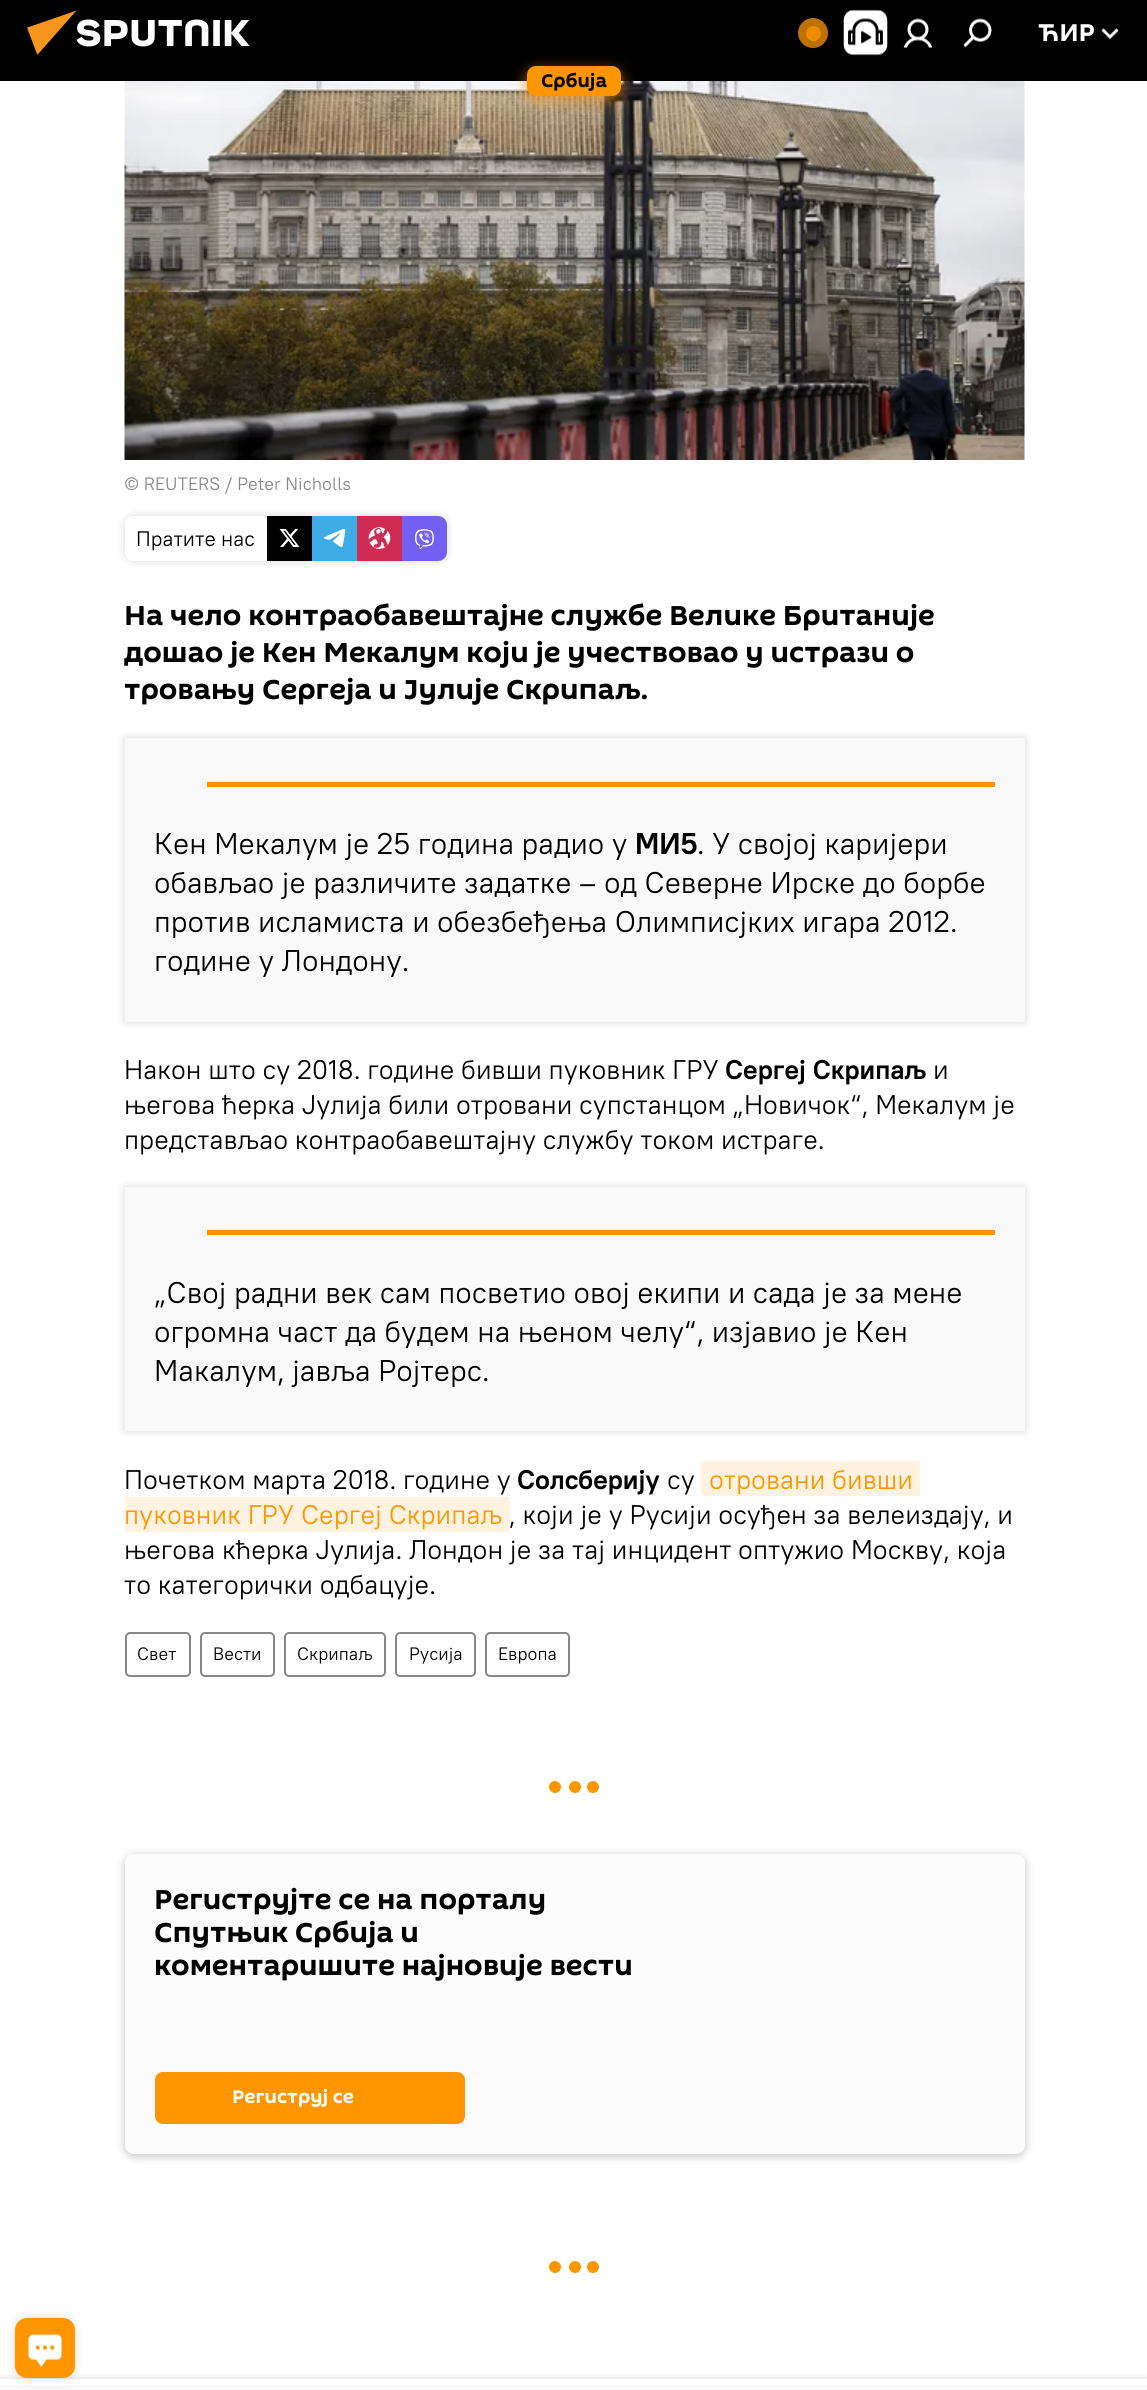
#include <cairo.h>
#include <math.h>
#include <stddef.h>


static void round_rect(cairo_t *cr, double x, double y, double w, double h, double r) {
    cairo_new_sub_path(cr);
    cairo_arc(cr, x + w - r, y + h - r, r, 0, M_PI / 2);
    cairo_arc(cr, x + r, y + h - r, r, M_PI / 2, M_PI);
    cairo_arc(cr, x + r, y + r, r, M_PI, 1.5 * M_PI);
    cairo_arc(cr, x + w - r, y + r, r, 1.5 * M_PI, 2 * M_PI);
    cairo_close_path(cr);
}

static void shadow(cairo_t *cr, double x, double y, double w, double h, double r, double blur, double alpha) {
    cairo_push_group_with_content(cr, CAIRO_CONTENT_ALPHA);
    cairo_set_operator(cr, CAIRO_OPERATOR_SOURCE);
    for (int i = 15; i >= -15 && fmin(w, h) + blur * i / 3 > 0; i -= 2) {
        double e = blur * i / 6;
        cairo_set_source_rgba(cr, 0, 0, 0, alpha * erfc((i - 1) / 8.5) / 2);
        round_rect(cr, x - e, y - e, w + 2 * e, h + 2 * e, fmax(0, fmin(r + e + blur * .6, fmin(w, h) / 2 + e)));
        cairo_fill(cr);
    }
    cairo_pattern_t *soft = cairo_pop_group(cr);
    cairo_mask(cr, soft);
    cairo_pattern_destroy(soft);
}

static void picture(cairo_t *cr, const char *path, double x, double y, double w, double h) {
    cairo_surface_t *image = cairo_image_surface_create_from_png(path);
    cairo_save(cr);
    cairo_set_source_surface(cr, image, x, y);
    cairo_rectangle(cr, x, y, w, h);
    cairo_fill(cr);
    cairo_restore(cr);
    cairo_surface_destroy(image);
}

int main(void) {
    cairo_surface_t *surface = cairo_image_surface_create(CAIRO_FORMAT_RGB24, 1147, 2390);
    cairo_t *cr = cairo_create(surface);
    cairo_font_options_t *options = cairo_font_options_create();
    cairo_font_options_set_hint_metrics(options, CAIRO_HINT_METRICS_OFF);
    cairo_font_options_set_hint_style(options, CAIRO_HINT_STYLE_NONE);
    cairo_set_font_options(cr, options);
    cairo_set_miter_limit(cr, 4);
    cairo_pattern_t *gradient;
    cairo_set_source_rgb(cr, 1, 1, 1);
    cairo_paint(cr);
    cairo_set_source_rgb(cr, 0, 0, 0);
    cairo_rectangle(cr, 0, 0, 1147, 81);
    cairo_fill(cr);
    cairo_set_source_rgb(cr, 0.749, 0.443, 0);
    cairo_arc(cr, 813, 33, 15, 0, 2 * M_PI);
    cairo_fill(cr);
    cairo_set_source_rgb(cr, 0.937, 0.553, 0);
    cairo_arc(cr, 813.5, 33.5, 7.5, 0, 2 * M_PI);
    cairo_fill(cr);
    picture(cr, "img1.png", 843, 9, 45, 47);
    picture(cr, "img2.png", 903, 18, 30, 30);
    picture(cr, "img3.png", 963, 18, 29, 30);
    cairo_select_font_face(cr, "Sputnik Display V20", CAIRO_FONT_SLANT_NORMAL, CAIRO_FONT_WEIGHT_BOLD);
    cairo_set_font_size(cr, 24);
    cairo_set_source_rgb(cr, 1, 1, 1);
    cairo_move_to(cr, 1038, 41);
    cairo_show_text(cr, "ЋИР");
    picture(cr, "img4.png", 1101, 28, 18, 12);
    picture(cr, "img5.png", 27, 10, 223, 45);
    picture(cr, "img6.png", 124, 81, 901, 379);
    cairo_set_source_rgb(cr, 0.973, 0.588, 0.114);
    shadow(cr, 527, 71, 94, 30, 9, 7.5, 0.66);
    cairo_set_source_rgb(cr, 1, 0.588, 0);
    round_rect(cr, 527, 66, 94, 30, 9);
    cairo_fill(cr);
    cairo_set_font_size(cr, 18);
    cairo_set_source_rgb(cr, 0, 0, 0);
    cairo_move_to(cr, 541, 87);
    cairo_show_text(cr, "Србија");
    cairo_select_font_face(cr, "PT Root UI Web", CAIRO_FONT_SLANT_NORMAL, CAIRO_FONT_WEIGHT_NORMAL);
    cairo_set_source_rgb(cr, 0.529, 0.529, 0.529);
    cairo_move_to(cr, 124, 490);
    cairo_show_text(cr, "© REUTERS / Peter Nicholls");
    cairo_save(cr);
    cairo_set_fill_rule(cr, CAIRO_FILL_RULE_EVEN_ODD);
    cairo_new_path(cr);
    cairo_move_to(cr, 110, 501);
    cairo_line_to(cr, 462, 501);
    cairo_line_to(cr, 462, 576);
    cairo_line_to(cr, 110, 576);
    cairo_close_path(cr);
    cairo_move_to(cr, 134, 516);
    cairo_line_to(cr, 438, 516);
    cairo_curve_to(cr, 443, 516, 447, 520, 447, 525);
    cairo_line_to(cr, 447, 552);
    cairo_curve_to(cr, 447, 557, 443, 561, 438, 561);
    cairo_line_to(cr, 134, 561);
    cairo_curve_to(cr, 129, 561, 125, 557, 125, 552);
    cairo_line_to(cr, 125, 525);
    cairo_curve_to(cr, 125, 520, 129, 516, 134, 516);
    cairo_close_path(cr);
    cairo_clip(cr);
    cairo_set_source_rgb(cr, 0, 0, 0);
    shadow(cr, 125, 516, 322, 45, 9, 4.5, 0.15);
    cairo_restore(cr);
    cairo_set_font_size(cr, 21);
    cairo_set_source_rgb(cr, 0, 0, 0);
    cairo_move_to(cr, 136, 546);
    cairo_show_text(cr, "Пратите нас");
    cairo_rectangle(cr, 267, 516, 45, 45);
    cairo_fill(cr);
    picture(cr, "img7.png", 279, 529, 21, 18);
    cairo_set_source_rgb(cr, 0.243, 0.678, 0.902);
    cairo_rectangle(cr, 312, 516, 45, 45);
    cairo_fill(cr);
    picture(cr, "img8.png", 323, 529, 23, 18);
    cairo_set_source_rgb(cr, 0.808, 0.173, 0.325);
    cairo_rectangle(cr, 357, 516, 45, 45);
    cairo_fill(cr);
    picture(cr, "img9.png", 368, 527, 23, 22);
    cairo_set_source_rgb(cr, 0.451, 0.376, 0.949);
    cairo_new_path(cr);
    cairo_move_to(cr, 402, 516);
    cairo_line_to(cr, 438, 516);
    cairo_curve_to(cr, 443, 516, 447, 520, 447, 525);
    cairo_line_to(cr, 447, 552);
    cairo_curve_to(cr, 447, 557, 443, 561, 438, 561);
    cairo_line_to(cr, 402, 561);
    cairo_close_path(cr);
    cairo_fill(cr);
    picture(cr, "img10.png", 415, 529, 19, 20);
    cairo_select_font_face(cr, "Sputnik Display V20", CAIRO_FONT_SLANT_NORMAL, CAIRO_FONT_WEIGHT_BOLD);
    cairo_set_font_size(cr, 27);
    cairo_set_source_rgb(cr, 0, 0, 0);
    cairo_move_to(cr, 124, 625);
    cairo_show_text(cr, "На чело контраобавештајне службе Велике Британије");
    cairo_move_to(cr, 124, 662);
    cairo_show_text(cr, "дошао је Кен Мекалум који је учествовао у истрази о");
    cairo_move_to(cr, 124, 699);
    cairo_show_text(cr, "тровању Сергеја и Јулије Скрипаљ.");
    cairo_set_source_rgb(cr, 0, 0, 0);
    shadow(cr, 125, 738, 900, 284, 0, 4.5, 0.15);
    cairo_set_source_rgb(cr, 0.976, 0.976, 0.976);
    cairo_rectangle(cr, 125, 738, 900, 284);
    cairo_fill(cr);
    cairo_set_source_rgb(cr, 1, 0.588, 0);
    cairo_rectangle(cr, 207, 782, 788, 5);
    cairo_fill(cr);
    cairo_select_font_face(cr, "PT Root UI Web", CAIRO_FONT_SLANT_NORMAL, CAIRO_FONT_WEIGHT_NORMAL);
    cairo_set_font_size(cr, 30);
    cairo_set_source_rgb(cr, 0, 0, 0);
    cairo_move_to(cr, 154, 854);
    cairo_show_text(cr, "Кен Мекалум је 25 година радио у");
    cairo_select_font_face(cr, "PT Root UI Web", CAIRO_FONT_SLANT_NORMAL, CAIRO_FONT_WEIGHT_BOLD);
    cairo_move_to(cr, 635, 854);
    cairo_show_text(cr, "МИ5");
    cairo_select_font_face(cr, "PT Root UI Web", CAIRO_FONT_SLANT_NORMAL, CAIRO_FONT_WEIGHT_NORMAL);
    cairo_move_to(cr, 697, 854);
    cairo_show_text(cr, ". У својој каријери");
    cairo_move_to(cr, 154, 893);
    cairo_show_text(cr, "обављао је различите задатке – од Северне Ирске до борбе");
    cairo_move_to(cr, 154, 932);
    cairo_show_text(cr, "против исламиста и обезбеђења Олимписјких игара 2012.");
    cairo_move_to(cr, 154, 971);
    cairo_show_text(cr, "године у Лондону.");
    cairo_set_font_size(cr, 27);
    cairo_move_to(cr, 124, 1079);
    cairo_show_text(cr, "Након што су 2018. године бивши пуковник ГРУ");
    cairo_select_font_face(cr, "PT Root UI Web", CAIRO_FONT_SLANT_NORMAL, CAIRO_FONT_WEIGHT_BOLD);
    cairo_move_to(cr, 725, 1079);
    cairo_show_text(cr, "Сергеј Скрипаљ");
    cairo_select_font_face(cr, "PT Root UI Web", CAIRO_FONT_SLANT_NORMAL, CAIRO_FONT_WEIGHT_NORMAL);
    cairo_move_to(cr, 933, 1079);
    cairo_show_text(cr, "и");
    cairo_move_to(cr, 124, 1114);
    cairo_show_text(cr, "његова ћерка Јулија били отровани супстанцом „Новичок“, Мекалум је");
    cairo_move_to(cr, 124, 1149);
    cairo_show_text(cr, "представљао контраобавештајну службу током истраге.");
    cairo_set_source_rgb(cr, 0, 0, 0);
    shadow(cr, 125, 1187, 900, 244, 0, 4.5, 0.15);
    cairo_set_source_rgb(cr, 0.976, 0.976, 0.976);
    cairo_rectangle(cr, 125, 1187, 900, 244);
    cairo_fill(cr);
    cairo_set_source_rgb(cr, 1, 0.588, 0);
    cairo_rectangle(cr, 207, 1230, 788, 5);
    cairo_fill(cr);
    cairo_set_font_size(cr, 30);
    cairo_set_source_rgb(cr, 0, 0, 0);
    cairo_move_to(cr, 154, 1303);
    cairo_show_text(cr, "„Свој радни век сам посветио овој екипи и сада је за мене");
    cairo_move_to(cr, 154, 1342);
    cairo_show_text(cr, "огромна част да будем на њеном челу“, изјавио је Кен");
    cairo_move_to(cr, 154, 1381);
    cairo_show_text(cr, "Макалум, јавља Ројтерс.");
    cairo_set_font_size(cr, 27);
    cairo_move_to(cr, 124, 1489);
    cairo_show_text(cr, "Почетком марта 2018. године у");
    cairo_select_font_face(cr, "PT Root UI Web", CAIRO_FONT_SLANT_NORMAL, CAIRO_FONT_WEIGHT_BOLD);
    cairo_move_to(cr, 517, 1489);
    cairo_show_text(cr, "Солсберију");
    cairo_select_font_face(cr, "PT Root UI Web", CAIRO_FONT_SLANT_NORMAL, CAIRO_FONT_WEIGHT_NORMAL);
    cairo_move_to(cr, 667, 1489);
    cairo_show_text(cr, "су");
    cairo_set_source_rgb(cr, 1, 0.949, 0.878);
    cairo_new_path(cr);
    cairo_move_to(cr, 704, 1461);
    cairo_line_to(cr, 912, 1461);
    cairo_line_to(cr, 912, 1496);
    cairo_line_to(cr, 704, 1496);
    cairo_curve_to(cr, 702.5, 1496, 701, 1494.5, 701, 1493);
    cairo_line_to(cr, 701, 1464);
    cairo_curve_to(cr, 701, 1462.5, 702.5, 1461, 704, 1461);
    cairo_close_path(cr);
    cairo_fill(cr);
    cairo_set_source_rgb(cr, 1, 0.588, 0);
    cairo_move_to(cr, 709, 1489);
    cairo_show_text(cr, "отровани бивши");
    cairo_set_source_rgb(cr, 1, 0.949, 0.878);
    cairo_rectangle(cr, 912, 1461, 8, 35);
    cairo_fill(cr);
    cairo_new_path(cr);
    cairo_move_to(cr, 125, 1497);
    cairo_line_to(cr, 507, 1497);
    cairo_curve_to(cr, 508.5, 1497, 510, 1498.5, 510, 1500);
    cairo_line_to(cr, 510, 1529);
    cairo_curve_to(cr, 510, 1530.5, 508.5, 1532, 507, 1532);
    cairo_line_to(cr, 125, 1532);
    cairo_close_path(cr);
    cairo_fill(cr);
    cairo_set_source_rgb(cr, 1, 0.588, 0);
    cairo_move_to(cr, 124, 1524);
    cairo_show_text(cr, "пуковник ГРУ Сергеј Скрипаљ");
    cairo_set_source_rgb(cr, 0, 0, 0);
    cairo_move_to(cr, 509, 1524);
    cairo_show_text(cr, ", који је у Русији осуђен за велеиздају, и");
    cairo_move_to(cr, 124, 1559);
    cairo_show_text(cr, "његова кћерка Јулија. Лондон је за тај инцидент оптужио Москву, која");
    cairo_move_to(cr, 124, 1594);
    cairo_show_text(cr, "то категорички одбацује.");
    round_rect(cr, 126, 1633, 64, 43, 4);
    cairo_set_source_rgb(cr, 0.529, 0.529, 0.529);
    cairo_stroke(cr);
    cairo_set_font_size(cr, 18);
    cairo_set_source_rgb(cr, 0, 0, 0);
    cairo_move_to(cr, 137, 1660);
    cairo_show_text(cr, "Свет");
    round_rect(cr, 201, 1633, 73, 43, 4);
    cairo_set_source_rgb(cr, 0.529, 0.529, 0.529);
    cairo_stroke(cr);
    cairo_set_source_rgb(cr, 0, 0, 0);
    cairo_move_to(cr, 213, 1660);
    cairo_show_text(cr, "Вести");
    round_rect(cr, 285, 1633, 100, 43, 4);
    cairo_set_source_rgb(cr, 0.529, 0.529, 0.529);
    cairo_stroke(cr);
    cairo_set_source_rgb(cr, 0, 0, 0);
    cairo_move_to(cr, 297, 1660);
    cairo_show_text(cr, "Скрипаљ");
    round_rect(cr, 396, 1633, 79, 43, 4);
    cairo_set_source_rgb(cr, 0.529, 0.529, 0.529);
    cairo_stroke(cr);
    cairo_set_source_rgb(cr, 0, 0, 0);
    cairo_move_to(cr, 409, 1660);
    cairo_show_text(cr, "Русија");
    round_rect(cr, 486, 1633, 83, 43, 4);
    cairo_set_source_rgb(cr, 0.529, 0.529, 0.529);
    cairo_stroke(cr);
    cairo_set_source_rgb(cr, 0, 0, 0);
    cairo_move_to(cr, 498, 1660);
    cairo_show_text(cr, "Европа");
    cairo_set_source_rgb(cr, 1, 0.588, 0);
    cairo_new_path(cr);
    cairo_arc(cr, 555, 1787, 6, 0, 2 * M_PI);
    cairo_fill(cr);
    cairo_arc(cr, 575, 1787, 6, 0, 2 * M_PI);
    cairo_fill(cr);
    cairo_arc(cr, 593, 1787, 6, 0, 2 * M_PI);
    cairo_fill(cr);
    cairo_set_source_rgb(cr, 0.125, 0.129, 0.141);
    shadow(cr, 125, 1856, 900, 300, 9, 4.5, 0.28);
    cairo_set_source_rgb(cr, 0.984, 0.984, 0.984);
    round_rect(cr, 125, 1854, 900, 300, 9);
    cairo_fill(cr);
    cairo_select_font_face(cr, "Sputnik Display V20", CAIRO_FONT_SLANT_NORMAL, CAIRO_FONT_WEIGHT_BOLD);
    cairo_set_font_size(cr, 27);
    cairo_set_source_rgb(cr, 0, 0, 0);
    cairo_move_to(cr, 154, 1909);
    cairo_show_text(cr, "Региструјте се на порталу");
    cairo_move_to(cr, 154, 1942);
    cairo_show_text(cr, "Спутњик Србија и");
    cairo_move_to(cr, 154, 1975);
    cairo_show_text(cr, "коментаришите најновије вести");
    cairo_set_source_rgb(cr, 1, 0.588, 0);
    round_rect(cr, 155, 2072, 310, 52, 8);
    cairo_fill(cr);
    cairo_set_font_size(cr, 18);
    cairo_set_source_rgb(cr, 1, 1, 1);
    cairo_move_to(cr, 232, 2103);
    cairo_show_text(cr, "Региструј се");
    cairo_set_source_rgb(cr, 1, 0.588, 0);
    cairo_new_path(cr);
    cairo_arc(cr, 555, 2267, 6, 0, 2 * M_PI);
    cairo_fill(cr);
    cairo_arc(cr, 575, 2267, 6, 0, 2 * M_PI);
    cairo_fill(cr);
    cairo_arc(cr, 593, 2267, 6, 0, 2 * M_PI);
    cairo_fill(cr);
    cairo_save(cr);
    cairo_rectangle(cr, 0, 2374, 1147, 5);
    cairo_clip(cr);
    cairo_set_source_rgb(cr, 0, 0, 0);
    shadow(cr, 0, 2379, 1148, 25, 0, 4.5, 0.15);
    cairo_restore(cr);
    gradient = cairo_pattern_create_linear(574, 2369, 574, 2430);
    cairo_pattern_add_color_stop_rgba(gradient, 0, 0, 0, 0, 0);
    cairo_pattern_add_color_stop_rgba(gradient, 0.61, 0, 0, 0, 0.05);
    cairo_pattern_add_color_stop_rgba(gradient, 0.86, 0, 0, 0, 0.09);
    cairo_pattern_add_color_stop_rgba(gradient, 1, 0, 0, 0, 0.18);
    cairo_set_source(cr, gradient);
    cairo_pattern_destroy(gradient);
    cairo_rectangle(cr, 0, 2385, 1147, 5);
    cairo_fill(cr);
    cairo_set_source_rgb(cr, 0, 0, 0);
    shadow(cr, 15, 2318, 60, 60, 12, 4.5, 0.15);
    cairo_set_source_rgb(cr, 1, 0.588, 0);
    round_rect(cr, 15, 2318, 60, 60, 12);
    cairo_fill(cr);
    picture(cr, "img11.png", 28, 2334, 34, 34);
    cairo_surface_write_to_png(surface, "page.png");
    cairo_font_options_destroy(options);
    cairo_destroy(cr);
    cairo_surface_destroy(surface);
    return 0;
}
